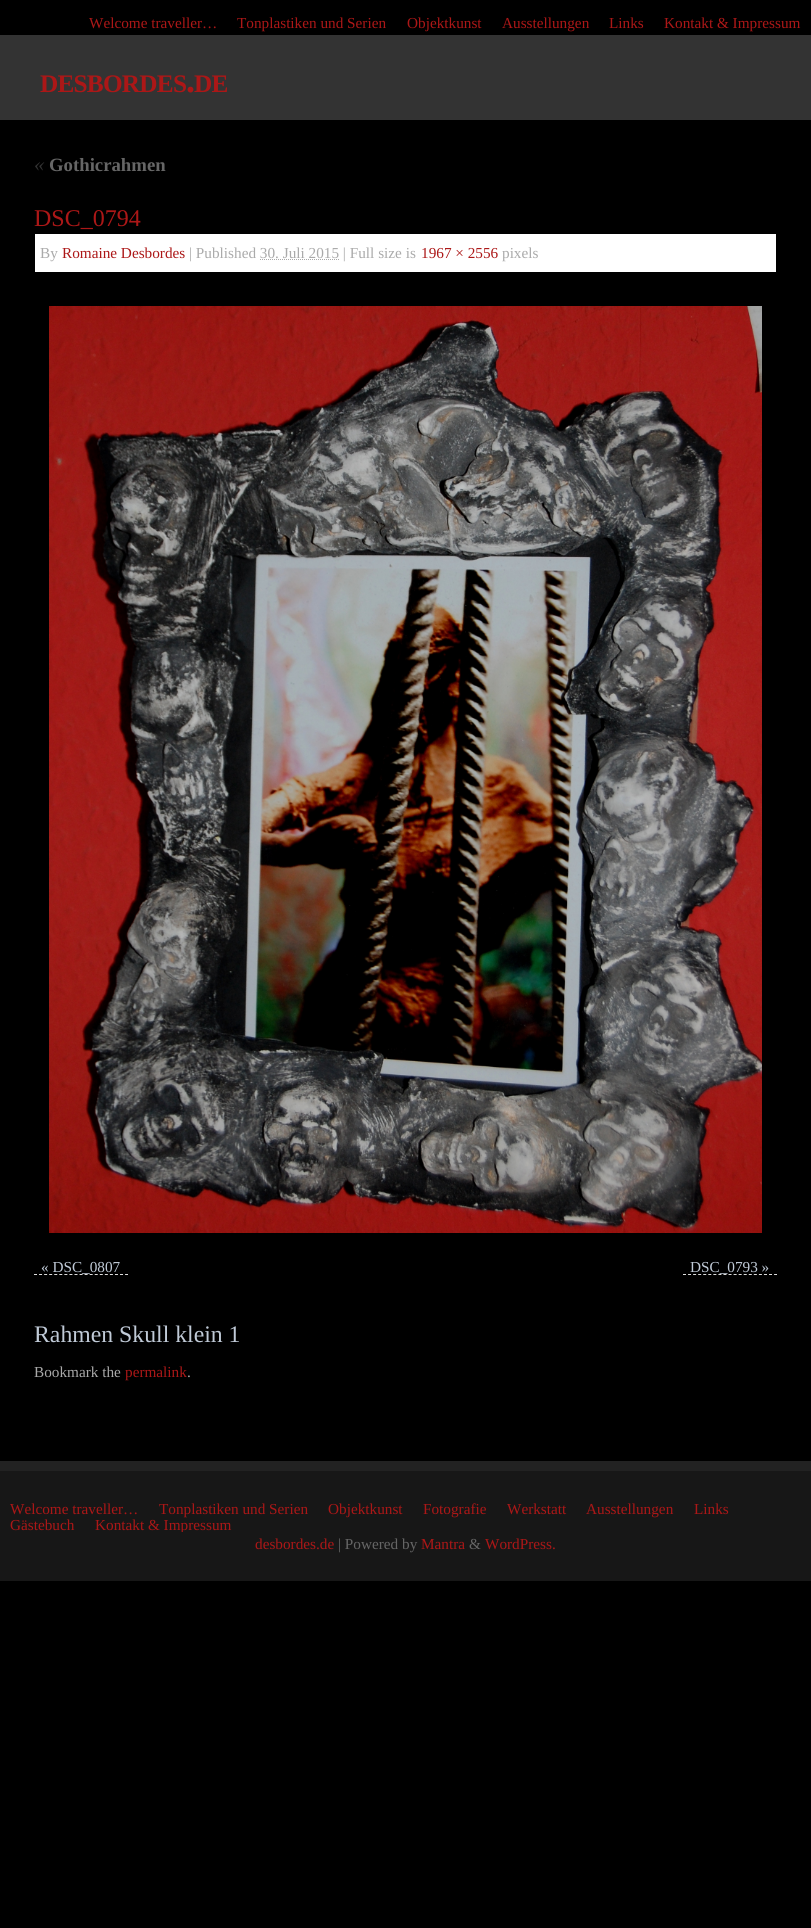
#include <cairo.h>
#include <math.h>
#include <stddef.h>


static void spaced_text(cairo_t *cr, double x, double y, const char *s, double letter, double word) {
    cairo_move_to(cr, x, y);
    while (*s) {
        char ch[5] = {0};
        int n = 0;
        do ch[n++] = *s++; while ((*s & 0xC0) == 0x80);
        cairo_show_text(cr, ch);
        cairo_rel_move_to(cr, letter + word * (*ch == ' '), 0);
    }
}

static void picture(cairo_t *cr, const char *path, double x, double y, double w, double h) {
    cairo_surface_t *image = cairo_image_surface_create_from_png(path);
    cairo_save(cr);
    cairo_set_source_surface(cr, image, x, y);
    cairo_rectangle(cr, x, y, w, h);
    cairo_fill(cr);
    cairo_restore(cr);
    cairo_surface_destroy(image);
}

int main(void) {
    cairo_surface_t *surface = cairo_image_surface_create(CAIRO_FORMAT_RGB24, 811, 1928);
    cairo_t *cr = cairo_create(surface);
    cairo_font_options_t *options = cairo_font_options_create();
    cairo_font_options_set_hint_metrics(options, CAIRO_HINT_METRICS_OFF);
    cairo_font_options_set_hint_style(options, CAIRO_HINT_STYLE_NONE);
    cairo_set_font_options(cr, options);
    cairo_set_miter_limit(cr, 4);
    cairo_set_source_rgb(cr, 0, 0, 0);
    cairo_paint(cr);
    cairo_select_font_face(cr, "Liberation Serif", CAIRO_FONT_SLANT_NORMAL, CAIRO_FONT_WEIGHT_NORMAL);
    cairo_set_font_size(cr, 15.25);
    cairo_set_source_rgb(cr, 0.675, 0.09, 0.09);
    cairo_move_to(cr, 89, 28);
    cairo_show_text(cr, "Welcome traveller…");
    cairo_move_to(cr, 237, 28);
    cairo_show_text(cr, "Tonplastiken und Serien");
    cairo_move_to(cr, 407, 28);
    cairo_show_text(cr, "Objektkunst");
    cairo_move_to(cr, 502, 28);
    cairo_show_text(cr, "Ausstellungen");
    cairo_move_to(cr, 609, 28);
    cairo_show_text(cr, "Links");
    cairo_move_to(cr, 664, 28);
    cairo_show_text(cr, "Kontakt & Impressum");
    cairo_set_source_rgb(cr, 0.2, 0.2, 0.2);
    cairo_rectangle(cr, 0, 35, 811, 85);
    cairo_fill(cr);
    cairo_select_font_face(cr, "Liberation Serif", CAIRO_FONT_SLANT_NORMAL, CAIRO_FONT_WEIGHT_BOLD);
    cairo_set_font_size(cr, 25.25);
    cairo_set_source_rgb(cr, 0.675, 0.09, 0.09);
    spaced_text(cr, 40, 92, "DESBORDES", -0.75, 0);
    cairo_set_font_size(cr, 36);
    spaced_text(cr, 186, 92, ".", -0.75, 0);
    cairo_set_font_size(cr, 25.25);
    spaced_text(cr, 194, 92, "DE", -0.75, 0);
    cairo_select_font_face(cr, "Liberation Serif", CAIRO_FONT_SLANT_ITALIC, CAIRO_FONT_WEIGHT_NORMAL);
    cairo_set_font_size(cr, 21);
    cairo_set_source_rgb(cr, 0.2, 0.2, 0.2);
    cairo_move_to(cr, 34, 171);
    cairo_show_text(cr, "«");
    cairo_select_font_face(cr, "Liberation Serif", CAIRO_FONT_SLANT_NORMAL, CAIRO_FONT_WEIGHT_BOLD);
    cairo_set_font_size(cr, 18.75);
    cairo_set_source_rgb(cr, 0.4, 0.4, 0.4);
    cairo_move_to(cr, 49, 171);
    cairo_show_text(cr, "Gothicrahmen");
    cairo_select_font_face(cr, "Liberation Serif", CAIRO_FONT_SLANT_NORMAL, CAIRO_FONT_WEIGHT_NORMAL);
    cairo_set_font_size(cr, 24);
    cairo_set_source_rgb(cr, 0.675, 0.09, 0.09);
    cairo_move_to(cr, 34, 226);
    cairo_show_text(cr, "DSC_0794");
    cairo_set_source_rgb(cr, 1, 1, 1);
    cairo_rectangle(cr, 35, 234, 741, 38);
    cairo_fill(cr);
    cairo_set_font_size(cr, 15.25);
    cairo_set_source_rgb(cr, 0.667, 0.667, 0.667);
    cairo_move_to(cr, 40, 258);
    cairo_show_text(cr, "By");
    cairo_set_source_rgb(cr, 0.675, 0.09, 0.09);
    cairo_move_to(cr, 62, 258);
    cairo_show_text(cr, "Romaine Desbordes");
    cairo_set_source_rgb(cr, 0.667, 0.667, 0.667);
    cairo_move_to(cr, 189, 258);
    cairo_show_text(cr, "| Published 30. Juli 2015 | Full size is");
    cairo_set_source_rgb(cr, 0.675, 0.09, 0.09);
    cairo_move_to(cr, 421, 258);
    cairo_show_text(cr, "1967 × 2556");
    cairo_set_source_rgb(cr, 0.667, 0.667, 0.667);
    cairo_move_to(cr, 502, 258);
    cairo_show_text(cr, "pixels");
    cairo_new_path(cr);
    cairo_move_to(cr, 260, 259.5);
    cairo_line_to(cr, 339.5, 259.5);
    cairo_set_line_width(cr, 1);
    cairo_set_dash(cr, (double[]){1, 1}, 2, 0);
    cairo_stroke(cr);
    picture(cr, "img1.png", 49, 306, 713, 927);
    cairo_new_path(cr);
    cairo_move_to(cr, 34, 1274.5);
    cairo_line_to(cr, 128, 1274.5);
    cairo_set_source_rgb(cr, 0.867, 0.867, 0.867);
    cairo_set_dash(cr, (double[]){3, 2.06}, 2, 0);
    cairo_stroke(cr);
    cairo_set_source_rgb(cr, 0.753, 0.792, 0.843);
    cairo_move_to(cr, 41, 1272);
    cairo_show_text(cr, "« DSC_0807");
    cairo_new_path(cr);
    cairo_move_to(cr, 683, 1274.5);
    cairo_line_to(cr, 777, 1274.5);
    cairo_set_source_rgb(cr, 0.867, 0.867, 0.867);
    cairo_stroke(cr);
    cairo_set_source_rgb(cr, 0.753, 0.792, 0.843);
    cairo_move_to(cr, 690, 1272);
    cairo_show_text(cr, "DSC_0793 »");
    cairo_set_font_size(cr, 23.75);
    cairo_move_to(cr, 34, 1342);
    cairo_show_text(cr, "Rahmen Skull klein 1");
    cairo_set_font_size(cr, 15.25);
    cairo_set_source_rgb(cr, 0.667, 0.667, 0.667);
    cairo_move_to(cr, 34, 1377);
    cairo_show_text(cr, "Bookmark the");
    cairo_set_source_rgb(cr, 0.675, 0.09, 0.09);
    cairo_move_to(cr, 125, 1377);
    cairo_show_text(cr, "permalink");
    cairo_set_source_rgb(cr, 0.667, 0.667, 0.667);
    cairo_move_to(cr, 187, 1377);
    cairo_show_text(cr, ".");
    cairo_set_source_rgb(cr, 0.133, 0.133, 0.133);
    cairo_rectangle(cr, 0, 1461, 811, 10);
    cairo_fill(cr);
    cairo_set_source_rgb(cr, 0.09, 0.09, 0.09);
    cairo_rectangle(cr, 0, 1471, 811, 110);
    cairo_fill(cr);
    cairo_set_source_rgb(cr, 0.675, 0.09, 0.09);
    cairo_move_to(cr, 10, 1514);
    cairo_show_text(cr, "Welcome traveller…");
    cairo_move_to(cr, 159, 1514);
    cairo_show_text(cr, "Tonplastiken und Serien");
    cairo_move_to(cr, 328, 1514);
    cairo_show_text(cr, "Objektkunst");
    cairo_move_to(cr, 423, 1514);
    cairo_show_text(cr, "Fotografie");
    cairo_move_to(cr, 507, 1514);
    cairo_show_text(cr, "Werkstatt");
    cairo_move_to(cr, 586, 1514);
    cairo_show_text(cr, "Ausstellungen");
    cairo_move_to(cr, 694, 1514);
    cairo_show_text(cr, "Links");
    cairo_move_to(cr, 10, 1530);
    cairo_show_text(cr, "Gästebuch");
    cairo_save(cr);
    cairo_rectangle(cr, 0, 1501, 811, 31);
    cairo_clip(cr);
    cairo_move_to(cr, 95, 1530);
    cairo_show_text(cr, "Kontakt & Impressum");
    cairo_restore(cr);
    cairo_move_to(cr, 255, 1549);
    cairo_show_text(cr, "desbordes.de");
    cairo_set_source_rgb(cr, 0.4, 0.4, 0.4);
    cairo_move_to(cr, 338, 1549);
    cairo_show_text(cr, "| Powered by");
    cairo_set_source_rgb(cr, 0.675, 0.09, 0.09);
    cairo_move_to(cr, 421, 1549);
    cairo_show_text(cr, "Mantra");
    cairo_set_source_rgb(cr, 0.4, 0.4, 0.4);
    cairo_move_to(cr, 469, 1549);
    cairo_show_text(cr, "&");
    cairo_set_source_rgb(cr, 0.675, 0.09, 0.09);
    cairo_move_to(cr, 485, 1549);
    cairo_show_text(cr, "WordPress.");
    cairo_surface_write_to_png(surface, "page.png");
    cairo_font_options_destroy(options);
    cairo_destroy(cr);
    cairo_surface_destroy(surface);
    return 0;
}
